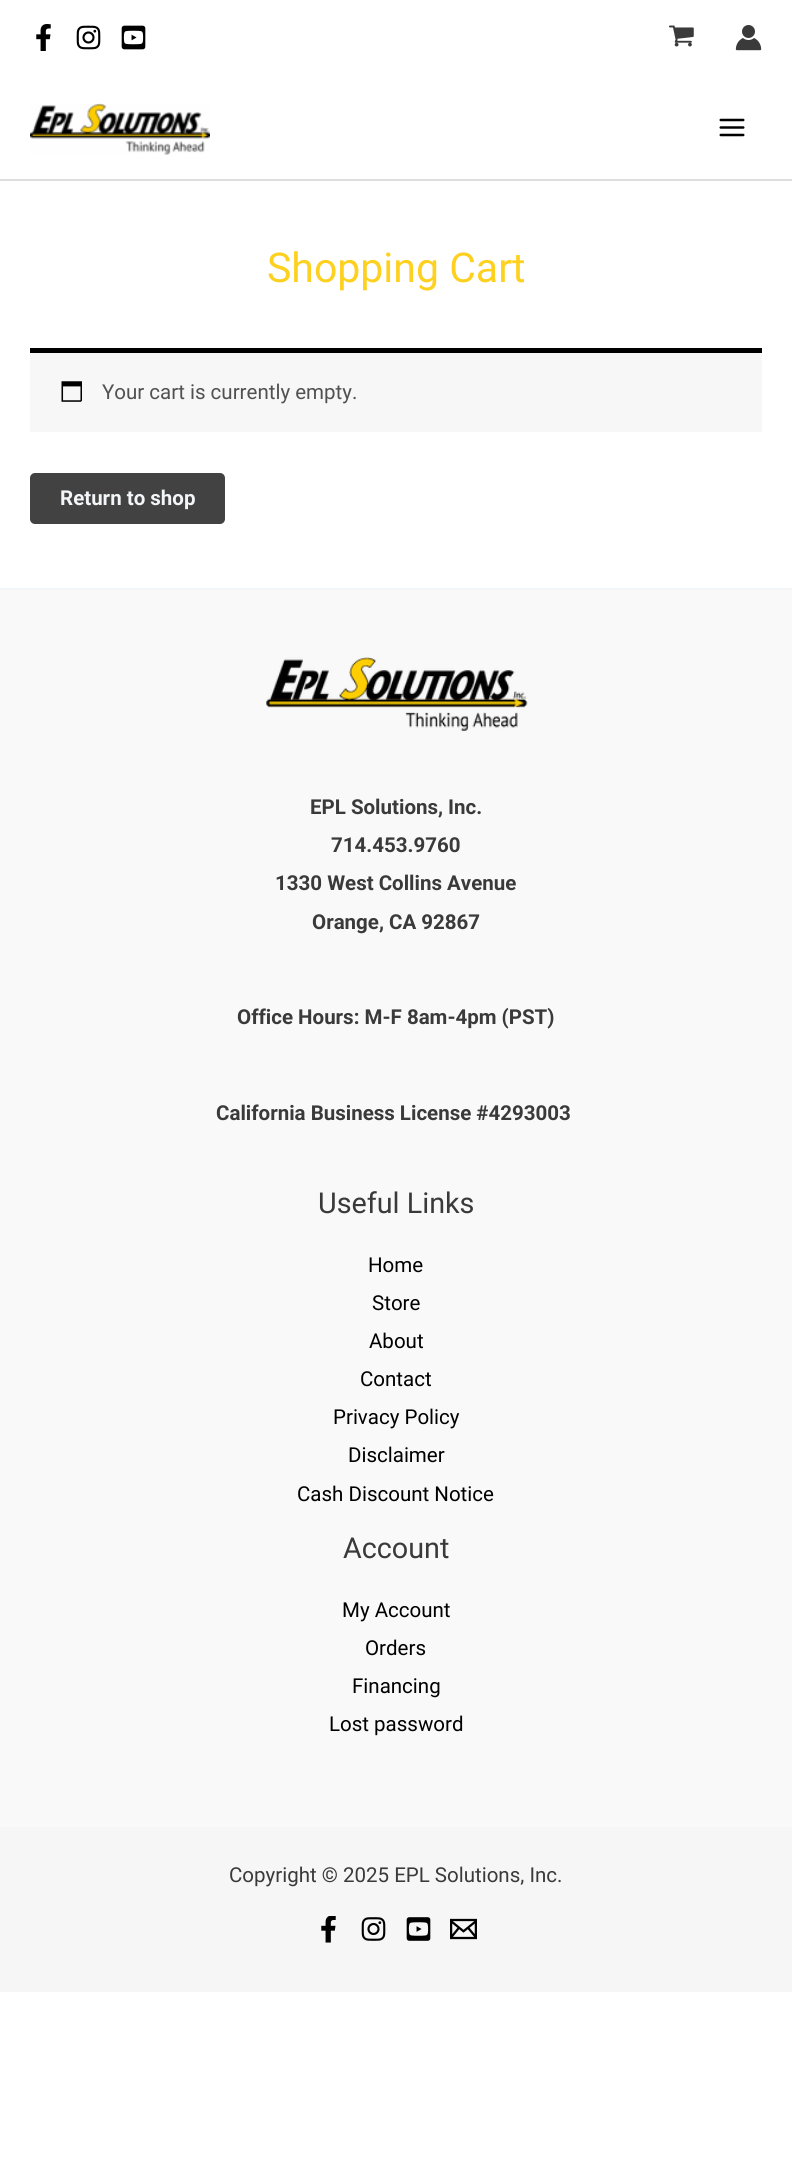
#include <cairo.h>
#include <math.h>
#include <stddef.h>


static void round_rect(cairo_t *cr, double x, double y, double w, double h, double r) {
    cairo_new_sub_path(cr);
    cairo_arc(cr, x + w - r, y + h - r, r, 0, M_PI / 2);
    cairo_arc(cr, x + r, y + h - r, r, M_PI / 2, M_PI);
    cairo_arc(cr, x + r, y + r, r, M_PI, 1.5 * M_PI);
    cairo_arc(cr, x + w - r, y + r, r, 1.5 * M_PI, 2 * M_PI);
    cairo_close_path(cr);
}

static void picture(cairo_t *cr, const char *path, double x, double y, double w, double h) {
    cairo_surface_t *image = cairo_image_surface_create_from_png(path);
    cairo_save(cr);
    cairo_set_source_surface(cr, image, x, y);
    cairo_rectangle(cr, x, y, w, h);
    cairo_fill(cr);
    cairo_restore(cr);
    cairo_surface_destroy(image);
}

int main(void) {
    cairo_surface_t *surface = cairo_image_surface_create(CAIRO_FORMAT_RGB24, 792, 2172);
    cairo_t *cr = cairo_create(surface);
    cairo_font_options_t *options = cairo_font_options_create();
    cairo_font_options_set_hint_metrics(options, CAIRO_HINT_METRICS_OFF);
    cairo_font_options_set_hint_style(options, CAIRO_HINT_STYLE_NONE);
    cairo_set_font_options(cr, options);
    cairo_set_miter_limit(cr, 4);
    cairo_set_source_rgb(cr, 1, 1, 1);
    cairo_paint(cr);
    picture(cr, "img1.png", 36, 24, 15, 27);
    picture(cr, "img2.png", 76, 25, 25, 25);
    picture(cr, "img3.png", 121, 25, 25, 25);
    picture(cr, "img4.png", 669, 25, 25, 22);
    picture(cr, "img5.png", 735, 25, 27, 26);
    cairo_set_source_rgb(cr, 0.867, 0.867, 0.867);
    cairo_rectangle(cr, 0, 179, 792, 2);
    cairo_fill(cr);
    picture(cr, "img6.png", 30, 103, 180, 52);
    picture(cr, "img7.png", 719, 118, 26, 19);
    cairo_select_font_face(cr, "Roboto", CAIRO_FONT_SLANT_NORMAL, CAIRO_FONT_WEIGHT_NORMAL);
    cairo_set_font_size(cr, 41);
    cairo_set_source_rgb(cr, 0.996, 0.816, 0.125);
    cairo_move_to(cr, 267, 282);
    cairo_show_text(cr, "Shopping Cart");
    cairo_set_source_rgb(cr, 0.969, 0.965, 0.969);
    cairo_rectangle(cr, 30, 353, 732, 79);
    cairo_fill(cr);
    cairo_set_source_rgb(cr, 0, 0, 0);
    cairo_rectangle(cr, 30, 348, 732, 5);
    cairo_fill(cr);
    picture(cr, "img8.png", 61, 381, 21, 21);
    cairo_set_font_size(cr, 20.5);
    cairo_set_source_rgb(cr, 0.318, 0.318, 0.318);
    cairo_move_to(cr, 102, 399);
    cairo_show_text(cr, "Your cart is currently empty.");
    cairo_set_source_rgb(cr, 0.259, 0.259, 0.259);
    round_rect(cr, 30, 473, 195, 51, 5);
    cairo_fill(cr);
    cairo_select_font_face(cr, "Roboto", CAIRO_FONT_SLANT_NORMAL, CAIRO_FONT_WEIGHT_BOLD);
    cairo_set_source_rgb(cr, 0.949, 0.961, 0.969);
    cairo_move_to(cr, 60, 505);
    cairo_show_text(cr, "Return to shop");
    cairo_set_source_rgb(cr, 0.961, 0.961, 0.961);
    cairo_rectangle(cr, 0, 1827, 792, 165);
    cairo_fill(cr);
    cairo_set_source_rgb(cr, 0.976, 0.976, 0.976);
    cairo_rectangle(cr, 0, 590, 792, 1237);
    cairo_fill(cr);
    cairo_set_source_rgb(cr, 0.949, 0.961, 0.969);
    cairo_rectangle(cr, 0, 588, 792, 2);
    cairo_fill(cr);
    picture(cr, "img9.png", 266, 657, 262, 74);
    cairo_set_source_rgb(cr, 0.227, 0.227, 0.227);
    cairo_move_to(cr, 310, 814);
    cairo_show_text(cr, "EPL Solutions, Inc.");
    cairo_move_to(cr, 331, 852);
    cairo_show_text(cr, "714.453.9760");
    cairo_move_to(cr, 275, 890);
    cairo_show_text(cr, "1330 West Collins Avenue");
    cairo_move_to(cr, 312, 929);
    cairo_show_text(cr, "Orange, CA 92867");
    cairo_move_to(cr, 237, 1024);
    cairo_show_text(cr, "Office Hours: M-F 8am-4pm (PST)");
    cairo_move_to(cr, 216, 1120);
    cairo_show_text(cr, "California Business License #4293003");
    cairo_select_font_face(cr, "Roboto", CAIRO_FONT_SLANT_NORMAL, CAIRO_FONT_WEIGHT_NORMAL);
    cairo_set_font_size(cr, 28.75);
    cairo_move_to(cr, 318, 1213);
    cairo_show_text(cr, "Useful Links");
    cairo_set_font_size(cr, 20.5);
    cairo_set_source_rgb(cr, 0, 0, 0);
    cairo_move_to(cr, 368, 1272);
    cairo_show_text(cr, "Home");
    cairo_move_to(cr, 372, 1310);
    cairo_show_text(cr, "Store");
    cairo_move_to(cr, 369, 1348);
    cairo_show_text(cr, "About");
    cairo_move_to(cr, 360, 1386);
    cairo_show_text(cr, "Contact");
    cairo_move_to(cr, 333, 1424);
    cairo_show_text(cr, "Privacy Policy");
    cairo_move_to(cr, 348, 1462);
    cairo_show_text(cr, "Disclaimer");
    cairo_move_to(cr, 297, 1501);
    cairo_show_text(cr, "Cash Discount Notice");
    cairo_set_font_size(cr, 28.75);
    cairo_set_source_rgb(cr, 0.227, 0.227, 0.227);
    cairo_move_to(cr, 343, 1558);
    cairo_show_text(cr, "Account");
    cairo_set_font_size(cr, 20.5);
    cairo_set_source_rgb(cr, 0, 0, 0);
    cairo_move_to(cr, 342, 1617);
    cairo_show_text(cr, "My Account");
    cairo_move_to(cr, 365, 1655);
    cairo_show_text(cr, "Orders");
    cairo_move_to(cr, 352, 1693);
    cairo_show_text(cr, "Financing");
    cairo_move_to(cr, 329, 1731);
    cairo_show_text(cr, "Lost password");
    cairo_set_source_rgb(cr, 0.227, 0.227, 0.227);
    cairo_move_to(cr, 229, 1882);
    cairo_show_text(cr, "Copyright © 2025 EPL Solutions, Inc.");
    picture(cr, "img10.png", 321, 1916, 15, 27);
    picture(cr, "img11.png", 361, 1917, 25, 24);
    picture(cr, "img12.png", 406, 1917, 25, 24);
    picture(cr, "img13.png", 450, 1918, 27, 22);
    cairo_surface_write_to_png(surface, "page.png");
    cairo_font_options_destroy(options);
    cairo_destroy(cr);
    cairo_surface_destroy(surface);
    return 0;
}
